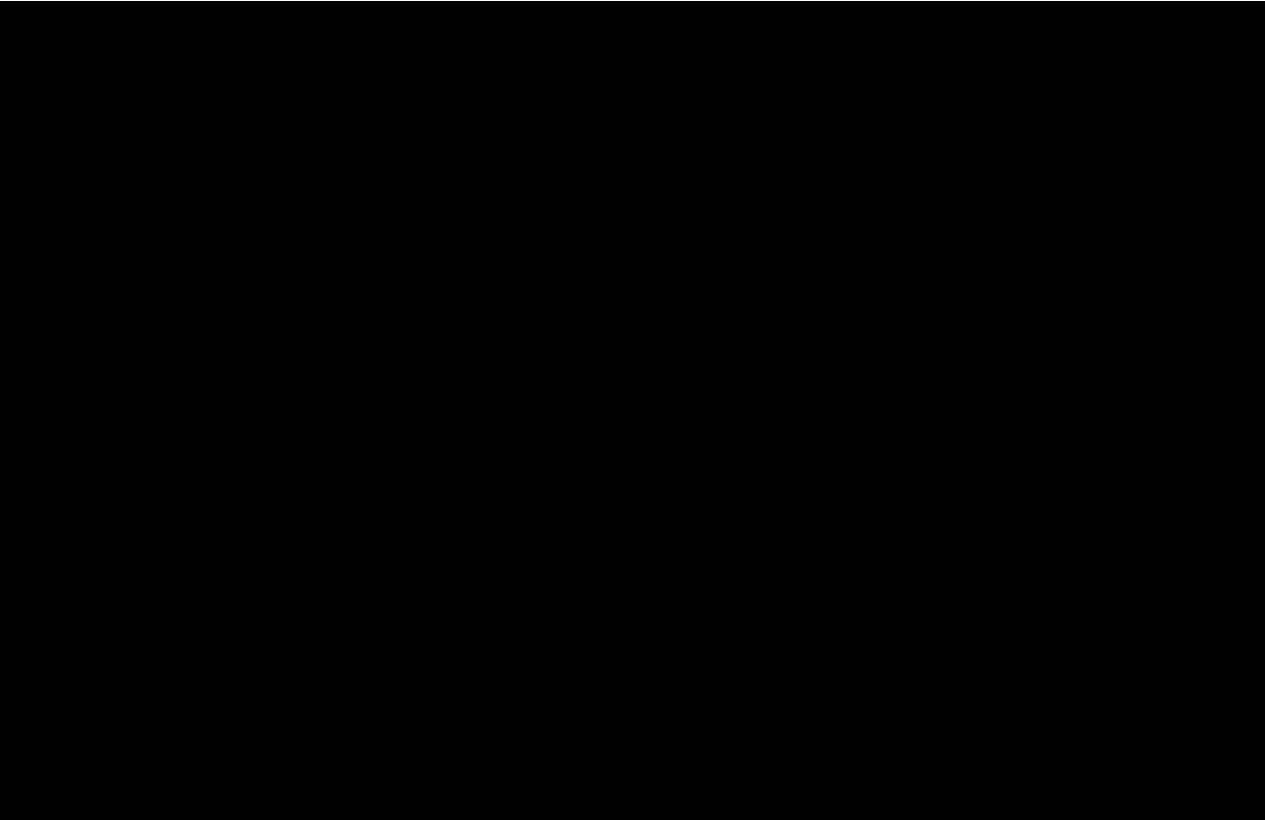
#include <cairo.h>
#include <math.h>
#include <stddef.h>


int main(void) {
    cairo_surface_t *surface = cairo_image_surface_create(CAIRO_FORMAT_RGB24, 1265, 820);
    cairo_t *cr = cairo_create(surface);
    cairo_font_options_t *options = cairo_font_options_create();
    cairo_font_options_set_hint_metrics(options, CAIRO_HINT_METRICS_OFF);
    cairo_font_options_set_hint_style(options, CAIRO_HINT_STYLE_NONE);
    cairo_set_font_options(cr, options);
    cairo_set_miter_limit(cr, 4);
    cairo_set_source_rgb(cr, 1, 1, 1);
    cairo_paint(cr);
    cairo_set_source_rgb(cr, 0, 0, 0);
    cairo_rectangle(cr, 0, 1, 1265, 819);
    cairo_fill(cr);
    cairo_surface_write_to_png(surface, "page.png");
    cairo_font_options_destroy(options);
    cairo_destroy(cr);
    cairo_surface_destroy(surface);
    return 0;
}
